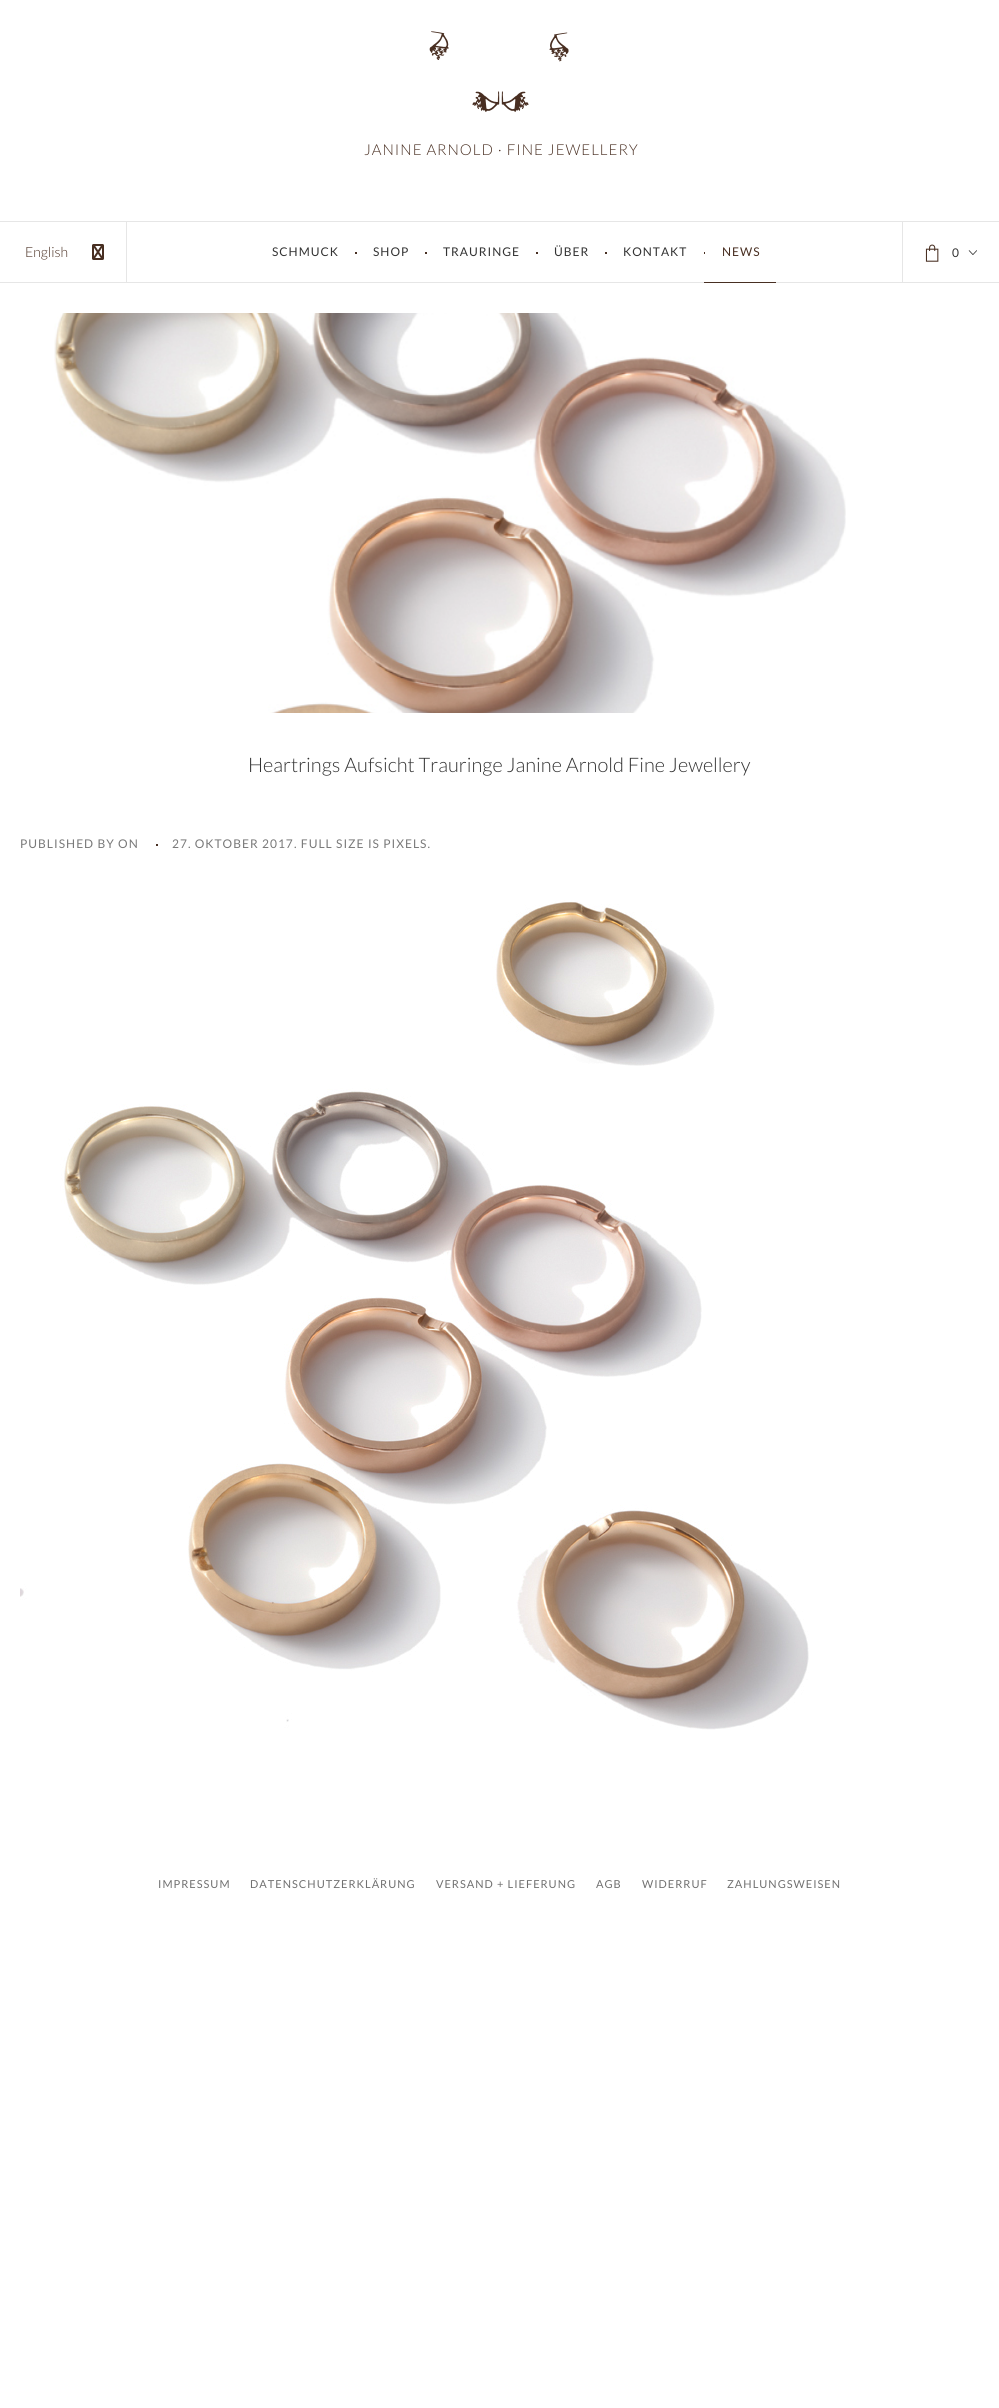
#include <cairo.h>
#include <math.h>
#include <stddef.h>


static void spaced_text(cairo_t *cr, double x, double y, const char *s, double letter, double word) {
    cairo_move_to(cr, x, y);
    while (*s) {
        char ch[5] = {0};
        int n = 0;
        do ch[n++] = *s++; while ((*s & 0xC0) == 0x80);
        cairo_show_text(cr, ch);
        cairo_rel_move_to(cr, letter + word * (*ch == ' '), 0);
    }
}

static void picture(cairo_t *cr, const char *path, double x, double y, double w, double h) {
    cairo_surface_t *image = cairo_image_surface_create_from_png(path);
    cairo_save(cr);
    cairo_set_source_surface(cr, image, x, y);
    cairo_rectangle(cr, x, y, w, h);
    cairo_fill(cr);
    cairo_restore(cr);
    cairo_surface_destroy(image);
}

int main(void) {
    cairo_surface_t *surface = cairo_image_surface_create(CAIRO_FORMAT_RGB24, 999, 2408);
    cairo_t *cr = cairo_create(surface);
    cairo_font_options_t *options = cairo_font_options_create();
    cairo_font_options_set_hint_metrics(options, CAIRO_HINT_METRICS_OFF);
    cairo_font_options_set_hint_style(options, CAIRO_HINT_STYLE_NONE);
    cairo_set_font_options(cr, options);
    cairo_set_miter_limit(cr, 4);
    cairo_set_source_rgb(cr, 1, 1, 1);
    cairo_paint(cr);
    picture(cr, "img1.png", 429, 31, 140, 81);
    cairo_select_font_face(cr, "Lato Light", CAIRO_FONT_SLANT_NORMAL, CAIRO_FONT_WEIGHT_NORMAL);
    cairo_set_font_size(cr, 15);
    cairo_set_source_rgb(cr, 0.282, 0.18, 0.129);
    spaced_text(cr, 364, 155, "JANINE ARNOLD · FINE JEWELLERY", 1, 0);
    cairo_set_source_rgb(cr, 0.902, 0.902, 0.902);
    cairo_rectangle(cr, 0, 221, 999, 1);
    cairo_fill(cr);
    cairo_rectangle(cr, 0, 282, 999, 1);
    cairo_fill(cr);
    cairo_set_font_size(cr, 14);
    cairo_set_source_rgb(cr, 0.282, 0.18, 0.129);
    cairo_move_to(cr, 25, 257);
    cairo_show_text(cr, "English");
    cairo_set_source_rgb(cr, 0.902, 0.902, 0.902);
    cairo_rectangle(cr, 126, 222, 1, 60);
    cairo_fill(cr);
    picture(cr, "img2.png", 92, 244, 12, 16);
    cairo_select_font_face(cr, "Lato", CAIRO_FONT_SLANT_NORMAL, CAIRO_FONT_WEIGHT_NORMAL);
    cairo_set_font_size(cr, 12);
    cairo_set_source_rgb(cr, 0.2, 0.2, 0.2);
    spaced_text(cr, 272, 256, "SCHMUCK", 1, 0);
    cairo_set_source_rgb(cr, 0.282, 0.184, 0.133);
    cairo_rectangle(cr, 355, 252, 2, 2);
    cairo_fill(cr);
    cairo_set_source_rgb(cr, 0.2, 0.2, 0.2);
    spaced_text(cr, 373, 256, "SHOP", 1, 0);
    cairo_set_source_rgb(cr, 0.282, 0.184, 0.133);
    cairo_rectangle(cr, 425, 252, 2, 2);
    cairo_fill(cr);
    cairo_set_source_rgb(cr, 0.2, 0.2, 0.2);
    spaced_text(cr, 443, 256, "TRAURINGE", 1, 0);
    cairo_set_source_rgb(cr, 0.282, 0.184, 0.133);
    cairo_rectangle(cr, 536, 252, 2, 2);
    cairo_fill(cr);
    cairo_set_source_rgb(cr, 0.2, 0.2, 0.2);
    spaced_text(cr, 554, 256, "ÜBER", 1, 0);
    cairo_set_source_rgb(cr, 0.282, 0.184, 0.133);
    cairo_rectangle(cr, 605, 252, 2, 2);
    cairo_fill(cr);
    cairo_set_source_rgb(cr, 0.2, 0.2, 0.2);
    spaced_text(cr, 623, 256, "KONTAKT", 1, 0);
    cairo_set_source_rgb(cr, 0.282, 0.184, 0.133);
    cairo_rectangle(cr, 704, 252, 2, 2);
    cairo_fill(cr);
    cairo_set_source_rgb(cr, 1, 1, 1);
    cairo_rectangle(cr, 705, 252, 1, 2);
    cairo_fill(cr);
    cairo_set_source_rgb(cr, 0.282, 0.18, 0.129);
    spaced_text(cr, 722, 256, "NEWS", 1, 0);
    cairo_set_source_rgb(cr, 0.282, 0.184, 0.133);
    cairo_rectangle(cr, 704, 282, 72, 1);
    cairo_fill(cr);
    cairo_set_source_rgb(cr, 0.902, 0.902, 0.902);
    cairo_rectangle(cr, 902, 222, 1, 60);
    cairo_fill(cr);
    picture(cr, "img3.png", 925, 244, 14, 18);
    cairo_set_source_rgb(cr, 0.2, 0.2, 0.2);
    spaced_text(cr, 952, 257, "0", 1, 0);
    picture(cr, "img4.png", 968, 250, 9, 5);
    picture(cr, "img5.png", 54, 313, 792, 400);
    cairo_select_font_face(cr, "Lato Light", CAIRO_FONT_SLANT_NORMAL, CAIRO_FONT_WEIGHT_NORMAL);
    cairo_set_font_size(cr, 20);
    cairo_move_to(cr, 248, 772);
    cairo_show_text(cr, "Heartrings Aufsicht Trauringe Janine Arnold Fine Jewellery");
    cairo_select_font_face(cr, "Lato", CAIRO_FONT_SLANT_NORMAL, CAIRO_FONT_WEIGHT_NORMAL);
    cairo_set_font_size(cr, 12);
    cairo_set_source_rgb(cr, 0.475, 0.475, 0.475);
    spaced_text(cr, 20, 848, "PUBLISHED BY ON", 1, 0);
    cairo_set_source_rgb(cr, 0.282, 0.184, 0.133);
    cairo_rectangle(cr, 156, 844, 2, 2);
    cairo_fill(cr);
    cairo_set_source_rgb(cr, 0.475, 0.475, 0.475);
    spaced_text(cr, 172, 848, "27. OKTOBER 2017", 1, 0);
    spaced_text(cr, 294, 848, ". FULL SIZE IS PIXELS.", 1, 0);
    picture(cr, "img6.png", 20, 900, 789, 830);
    cairo_set_font_size(cr, 11);
    cairo_set_source_rgb(cr, 0.439, 0.439, 0.439);
    spaced_text(cr, 158, 1888, "IMPRESSUM", 1, 0);
    spaced_text(cr, 250, 1888, "DATENSCHUTZERKLÄRUNG", 1, 0);
    spaced_text(cr, 436, 1888, "VERSAND + LIEFERUNG", 1, 0);
    spaced_text(cr, 596, 1888, "AGB", 1, 0);
    spaced_text(cr, 642, 1888, "WIDERRUF", 1, 0);
    spaced_text(cr, 727, 1888, "ZAHLUNGSWEISEN", 1, 0);
    cairo_surface_write_to_png(surface, "page.png");
    cairo_font_options_destroy(options);
    cairo_destroy(cr);
    cairo_surface_destroy(surface);
    return 0;
}
